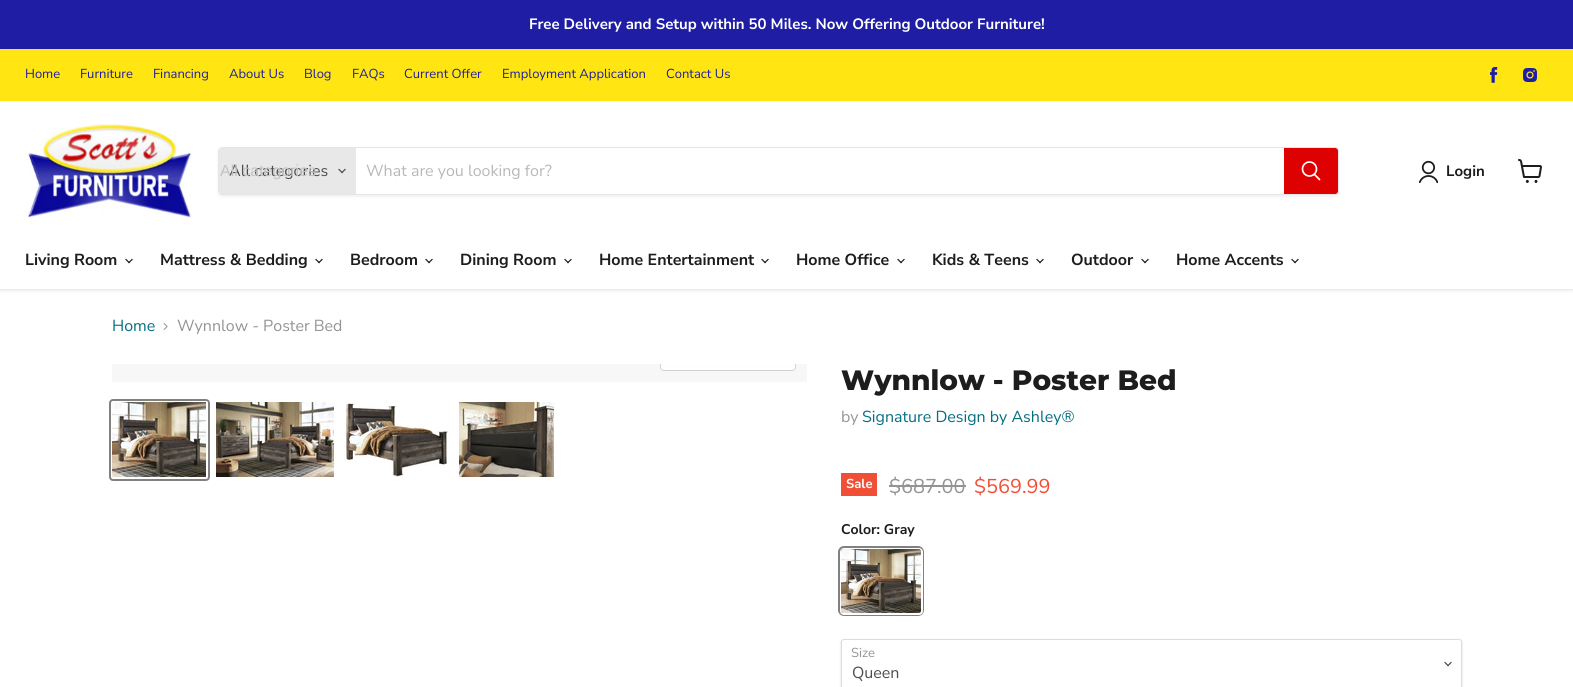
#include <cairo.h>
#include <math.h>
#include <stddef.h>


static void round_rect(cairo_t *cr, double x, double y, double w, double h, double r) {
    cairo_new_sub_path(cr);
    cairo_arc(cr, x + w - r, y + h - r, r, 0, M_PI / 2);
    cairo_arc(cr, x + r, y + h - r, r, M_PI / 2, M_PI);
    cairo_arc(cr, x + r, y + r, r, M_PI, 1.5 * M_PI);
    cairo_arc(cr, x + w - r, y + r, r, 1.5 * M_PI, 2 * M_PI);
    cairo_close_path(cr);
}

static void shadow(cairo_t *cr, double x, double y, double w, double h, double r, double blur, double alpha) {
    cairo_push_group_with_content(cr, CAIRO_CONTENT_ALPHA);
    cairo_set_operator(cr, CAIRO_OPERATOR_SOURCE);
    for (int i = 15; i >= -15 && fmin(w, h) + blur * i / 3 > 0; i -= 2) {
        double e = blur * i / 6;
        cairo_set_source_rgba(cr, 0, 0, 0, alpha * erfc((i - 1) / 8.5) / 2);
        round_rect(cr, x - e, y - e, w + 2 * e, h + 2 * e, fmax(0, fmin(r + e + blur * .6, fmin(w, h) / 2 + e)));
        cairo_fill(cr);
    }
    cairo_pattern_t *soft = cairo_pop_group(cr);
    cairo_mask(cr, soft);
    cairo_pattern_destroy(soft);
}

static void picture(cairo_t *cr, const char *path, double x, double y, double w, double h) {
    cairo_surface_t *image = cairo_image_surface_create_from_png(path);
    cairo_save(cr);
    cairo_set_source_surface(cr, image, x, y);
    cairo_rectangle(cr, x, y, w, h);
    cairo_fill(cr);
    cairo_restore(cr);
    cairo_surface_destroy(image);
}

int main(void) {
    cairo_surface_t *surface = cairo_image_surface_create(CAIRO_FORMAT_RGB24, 1573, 687);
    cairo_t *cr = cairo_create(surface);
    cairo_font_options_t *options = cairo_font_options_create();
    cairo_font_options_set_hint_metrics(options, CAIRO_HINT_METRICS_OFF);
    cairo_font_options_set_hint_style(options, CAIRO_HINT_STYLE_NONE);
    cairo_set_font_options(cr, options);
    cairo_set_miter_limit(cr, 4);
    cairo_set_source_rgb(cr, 1, 1, 1);
    cairo_paint(cr);
    cairo_set_source_rgb(cr, 0.118, 0.114, 0.639);
    cairo_rectangle(cr, 0, 0, 1573, 49);
    cairo_fill(cr);
    cairo_select_font_face(cr, "Nunito Sans", CAIRO_FONT_SLANT_NORMAL, CAIRO_FONT_WEIGHT_BOLD);
    cairo_set_font_size(cr, 15);
    cairo_set_source_rgb(cr, 1, 1, 1);
    cairo_move_to(cr, 529, 29);
    cairo_show_text(cr, "Free Delivery and Setup within 50 Miles. Now Offering Outdoor Furniture!");
    cairo_save(cr);
    cairo_rectangle(cr, 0, 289, 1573, 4);
    cairo_clip(cr);
    cairo_set_source_rgb(cr, 0.502, 0.502, 0.502);
    shadow(cr, 0, 103, 1573, 187, 0, 2, 0.25);
    cairo_restore(cr);
    cairo_set_source_rgb(cr, 1, 0.902, 0.071);
    cairo_rectangle(cr, 0, 49, 1573, 52);
    cairo_fill(cr);
    cairo_set_source_rgb(cr, 1, 1, 1);
    cairo_rectangle(cr, 0, 101, 1573, 1);
    cairo_fill(cr);
    cairo_select_font_face(cr, "Nunito Sans", CAIRO_FONT_SLANT_NORMAL, CAIRO_FONT_WEIGHT_NORMAL);
    cairo_set_font_size(cr, 13);
    cairo_set_source_rgb(cr, 0.118, 0.114, 0.639);
    cairo_move_to(cr, 25, 78);
    cairo_show_text(cr, "Home");
    cairo_move_to(cr, 80, 78);
    cairo_show_text(cr, "Furniture");
    cairo_move_to(cr, 153, 78);
    cairo_show_text(cr, "Financing");
    cairo_move_to(cr, 229, 78);
    cairo_show_text(cr, "About Us");
    cairo_move_to(cr, 304, 78);
    cairo_show_text(cr, "Blog");
    cairo_move_to(cr, 352, 78);
    cairo_show_text(cr, "FAQs");
    cairo_move_to(cr, 404, 78);
    cairo_show_text(cr, "Current Offer");
    cairo_move_to(cr, 502, 78);
    cairo_show_text(cr, "Employment Application");
    cairo_move_to(cr, 666, 78);
    cairo_show_text(cr, "Contact Us");
    picture(cr, "img1.png", 1490, 67, 8, 16);
    picture(cr, "img2.png", 1523, 68, 14, 14);
    picture(cr, "img3.png", 25, 124, 167, 95);
    cairo_save(cr);
    cairo_set_fill_rule(cr, CAIRO_FILL_RULE_EVEN_ODD);
    cairo_new_path(cr);
    cairo_move_to(cr, 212, 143);
    cairo_line_to(cr, 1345, 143);
    cairo_line_to(cr, 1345, 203);
    cairo_line_to(cr, 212, 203);
    cairo_close_path(cr);
    cairo_move_to(cr, 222, 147);
    cairo_line_to(cr, 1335, 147);
    cairo_curve_to(cr, 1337, 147, 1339, 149, 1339, 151);
    cairo_line_to(cr, 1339, 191);
    cairo_curve_to(cr, 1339, 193, 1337, 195, 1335, 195);
    cairo_line_to(cr, 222, 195);
    cairo_curve_to(cr, 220, 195, 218, 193, 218, 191);
    cairo_line_to(cr, 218, 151);
    cairo_curve_to(cr, 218, 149, 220, 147, 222, 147);
    cairo_close_path(cr);
    cairo_clip(cr);
    cairo_set_source_rgb(cr, 0.502, 0.502, 0.502);
    shadow(cr, 218, 149, 1121, 48, 4, 1.5, 0.11);
    cairo_restore(cr);
    round_rect(cr, 218.5, 147.5, 1120, 47, 3.5);
    cairo_set_source_rgba(cr, 0.502, 0.502, 0.502, 0.2);
    cairo_set_line_width(cr, 1);
    cairo_stroke(cr);
    cairo_set_source_rgb(cr, 0.91, 0.91, 0.91);
    cairo_new_path(cr);
    cairo_move_to(cr, 222, 148);
    cairo_line_to(cr, 356, 148);
    cairo_line_to(cr, 356, 194);
    cairo_line_to(cr, 222, 194);
    cairo_curve_to(cr, 220.5, 194, 219, 192.5, 219, 191);
    cairo_line_to(cr, 219, 151);
    cairo_curve_to(cr, 219, 149.5, 220.5, 148, 222, 148);
    cairo_close_path(cr);
    cairo_fill(cr);
    cairo_set_font_size(cr, 16);
    cairo_set_source_rgb(cr, 0.302, 0.302, 0.302);
    cairo_move_to(cr, 229, 176);
    cairo_show_text(cr, "All categories");
    cairo_select_font_face(cr, "Liberation Sans", CAIRO_FONT_SLANT_NORMAL, CAIRO_FONT_WEIGHT_NORMAL);
    cairo_set_source_rgb(cr, 0.765, 0.765, 0.765);
    cairo_move_to(cr, 220, 176);
    cairo_show_text(cr, "All categories");
    picture(cr, "img4.png", 338, 168, 8, 6);
    cairo_select_font_face(cr, "Nunito Sans", CAIRO_FONT_SLANT_NORMAL, CAIRO_FONT_WEIGHT_NORMAL);
    cairo_set_source_rgb(cr, 0.722, 0.722, 0.722);
    cairo_move_to(cr, 366, 176);
    cairo_show_text(cr, "What are you looking for?");
    cairo_set_source_rgb(cr, 0.871, 0.004, 0.004);
    cairo_new_path(cr);
    cairo_move_to(cr, 1284.5, 148.5);
    cairo_line_to(cr, 1335, 148.5);
    cairo_curve_to(cr, 1336.5, 148.5, 1337.5, 149.5, 1337.5, 151);
    cairo_line_to(cr, 1337.5, 191);
    cairo_curve_to(cr, 1337.5, 192.5, 1336.5, 193.5, 1335, 193.5);
    cairo_line_to(cr, 1284.5, 193.5);
    cairo_close_path(cr);
    cairo_fill_preserve(cr);
    cairo_stroke(cr);
    cairo_new_path(cr);
    cairo_move_to(cr, 1319.5, 179.5);
    cairo_line_to(cr, 1314.5, 174.5);
    cairo_set_source_rgb(cr, 1, 1, 1);
    cairo_set_line_width(cr, 1.7);
    cairo_set_line_cap(cr, CAIRO_LINE_CAP_ROUND);
    cairo_stroke(cr);
    cairo_arc(cr, 1309.5, 169, 7, 0, 2 * M_PI);
    cairo_set_line_cap(cr, CAIRO_LINE_CAP_BUTT);
    cairo_stroke(cr);
    picture(cr, "img5.png", 1418, 160, 20, 23);
    cairo_select_font_face(cr, "Nunito Sans", CAIRO_FONT_SLANT_NORMAL, CAIRO_FONT_WEIGHT_BOLD);
    cairo_set_font_size(cr, 15);
    cairo_set_source_rgb(cr, 0.114, 0.114, 0.114);
    cairo_move_to(cr, 1446, 176);
    cairo_show_text(cr, "Login");
    picture(cr, "img6.png", 1518, 159, 24, 24);
    cairo_set_font_size(cr, 16);
    cairo_move_to(cr, 25, 265);
    cairo_show_text(cr, "Living Room");
    picture(cr, "img7.png", 125, 258, 8, 6);
    cairo_move_to(cr, 160, 265);
    cairo_show_text(cr, "Mattress & Bedding");
    picture(cr, "img7.png", 315, 258, 8, 6);
    cairo_move_to(cr, 350, 265);
    cairo_show_text(cr, "Bedroom");
    picture(cr, "img7.png", 425, 258, 8, 6);
    cairo_move_to(cr, 460, 265);
    cairo_show_text(cr, "Dining Room");
    picture(cr, "img7.png", 564, 258, 8, 6);
    cairo_move_to(cr, 599, 265);
    cairo_show_text(cr, "Home Entertainment");
    picture(cr, "img7.png", 761, 258, 8, 6);
    cairo_move_to(cr, 796, 265);
    cairo_show_text(cr, "Home Office");
    picture(cr, "img7.png", 897, 258, 8, 6);
    cairo_move_to(cr, 932, 265);
    cairo_show_text(cr, "Kids & Teens");
    picture(cr, "img7.png", 1036, 258, 8, 6);
    cairo_move_to(cr, 1071, 265);
    cairo_show_text(cr, "Outdoor");
    picture(cr, "img7.png", 1141, 258, 8, 6);
    cairo_move_to(cr, 1176, 265);
    cairo_show_text(cr, "Home Accents");
    picture(cr, "img7.png", 1291, 258, 8, 6);
    cairo_select_font_face(cr, "Nunito Sans", CAIRO_FONT_SLANT_NORMAL, CAIRO_FONT_WEIGHT_NORMAL);
    cairo_set_source_rgb(cr, 0.016, 0.431, 0.51);
    cairo_move_to(cr, 112, 331);
    cairo_show_text(cr, "Home");
    picture(cr, "img8.png", 163, 323, 5, 7);
    cairo_set_source_rgb(cr, 0.58, 0.58, 0.58);
    cairo_move_to(cr, 177, 331);
    cairo_show_text(cr, "Wynnlow - Poster Bed");
    cairo_set_source_rgb(cr, 0.965, 0.965, 0.965);
    cairo_rectangle(cr, 112, 364, 695, 18);
    cairo_fill(cr);
    cairo_save(cr);
    cairo_rectangle(cr, 112, 364, 695, 18);
    cairo_clip(cr);
    round_rect(cr, 660.5, 341.5, 135, 29, 3.5);
    cairo_set_source_rgb(cr, 0.82, 0.82, 0.82);
    cairo_set_line_width(cr, 1);
    cairo_stroke(cr);
    cairo_restore(cr);
    cairo_set_source_rgba(cr, 1, 1, 1, 0.9);
    cairo_new_path(cr);
    cairo_move_to(cr, 661, 364);
    cairo_line_to(cr, 795, 364);
    cairo_line_to(cr, 795, 367);
    cairo_curve_to(cr, 795, 368.5, 793.5, 370, 792, 370);
    cairo_line_to(cr, 664, 370);
    cairo_curve_to(cr, 662.5, 370, 661, 368.5, 661, 367);
    cairo_close_path(cr);
    cairo_fill(cr);
    round_rect(cr, 110, 400, 99, 80, 3);
    cairo_set_source_rgb(cr, 0.506, 0.506, 0.506);
    cairo_set_line_width(cr, 2);
    cairo_stroke(cr);
    picture(cr, "img9.png", 112, 402, 94, 75);
    picture(cr, "img10.png", 216, 402, 118, 75);
    picture(cr, "img11.png", 344, 402, 104, 75);
    picture(cr, "img12.png", 459, 402, 95, 75);
    cairo_select_font_face(cr, "Montserrat ExtraBold", CAIRO_FONT_SLANT_NORMAL, CAIRO_FONT_WEIGHT_NORMAL);
    cairo_set_font_size(cr, 28);
    cairo_set_source_rgb(cr, 0.114, 0.114, 0.114);
    cairo_move_to(cr, 841, 390);
    cairo_show_text(cr, "Wynnlow - Poster Bed");
    cairo_select_font_face(cr, "Nunito Sans", CAIRO_FONT_SLANT_NORMAL, CAIRO_FONT_WEIGHT_NORMAL);
    cairo_set_font_size(cr, 16);
    cairo_set_source_rgb(cr, 0.58, 0.58, 0.58);
    cairo_move_to(cr, 841, 422);
    cairo_show_text(cr, "by");
    cairo_set_source_rgb(cr, 0.016, 0.431, 0.51);
    cairo_move_to(cr, 862, 422);
    cairo_show_text(cr, "Signature Design by Ashley®");
    cairo_set_source_rgb(cr, 0.941, 0.31, 0.212);
    cairo_rectangle(cr, 841, 473, 36, 23);
    cairo_fill(cr);
    cairo_select_font_face(cr, "Nunito Sans", CAIRO_FONT_SLANT_NORMAL, CAIRO_FONT_WEIGHT_BOLD);
    cairo_set_font_size(cr, 13);
    cairo_set_source_rgb(cr, 1, 1, 1);
    cairo_move_to(cr, 846, 488);
    cairo_show_text(cr, "Sale");
    cairo_select_font_face(cr, "Nunito Sans", CAIRO_FONT_SLANT_NORMAL, CAIRO_FONT_WEIGHT_NORMAL);
    cairo_set_font_size(cr, 20);
    cairo_set_source_rgb(cr, 0.58, 0.58, 0.58);
    cairo_move_to(cr, 889, 493);
    cairo_show_text(cr, "$687.00");
    cairo_rectangle(cr, 889, 485, 77, 2);
    cairo_fill(cr);
    cairo_set_source_rgb(cr, 0.941, 0.31, 0.212);
    cairo_move_to(cr, 974, 493);
    cairo_show_text(cr, "$569.99");
    cairo_select_font_face(cr, "Nunito Sans", CAIRO_FONT_SLANT_NORMAL, CAIRO_FONT_WEIGHT_BOLD);
    cairo_set_font_size(cr, 14);
    cairo_set_source_rgb(cr, 0.114, 0.114, 0.114);
    cairo_move_to(cr, 841, 534);
    cairo_show_text(cr, "Color: Gray");
    round_rect(cr, 839.5, 547.5, 83, 67, 4.5);
    cairo_set_source_rgb(cr, 0.506, 0.506, 0.506);
    cairo_set_line_width(cr, 3);
    cairo_stroke(cr);
    round_rect(cr, 841, 549, 81, 65, 3);
    cairo_set_source_rgb(cr, 1, 1, 1);
    cairo_set_line_width(cr, 2);
    cairo_stroke(cr);
    cairo_set_source_rgb(cr, 0.502, 0.502, 0.502);
    round_rect(cr, 841, 549, 80, 64, 2.5);
    cairo_fill(cr);
    picture(cr, "img13.png", 841, 549, 80, 64);
    cairo_set_source_rgb(cr, 0, 0, 0);
    shadow(cr, 841, 640, 621, 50, 3, 1, 0.15);
    cairo_set_source_rgb(cr, 1, 1, 1);
    round_rect(cr, 841.5, 639.5, 620, 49, 2.5);
    cairo_fill_preserve(cr);
    cairo_set_source_rgb(cr, 0.867, 0.867, 0.867);
    cairo_set_line_width(cr, 1);
    cairo_stroke(cr);
    cairo_select_font_face(cr, "Nunito Sans", CAIRO_FONT_SLANT_NORMAL, CAIRO_FONT_WEIGHT_NORMAL);
    cairo_set_font_size(cr, 13);
    cairo_set_source_rgb(cr, 0.58, 0.58, 0.58);
    cairo_move_to(cr, 851, 657);
    cairo_show_text(cr, "Size");
    picture(cr, "img14.png", 1444, 661, 8, 6);
    cairo_set_font_size(cr, 16);
    cairo_set_source_rgb(cr, 0.302, 0.302, 0.302);
    cairo_move_to(cr, 852, 678);
    cairo_show_text(cr, "Queen");
    cairo_surface_write_to_png(surface, "page.png");
    cairo_font_options_destroy(options);
    cairo_destroy(cr);
    cairo_surface_destroy(surface);
    return 0;
}
